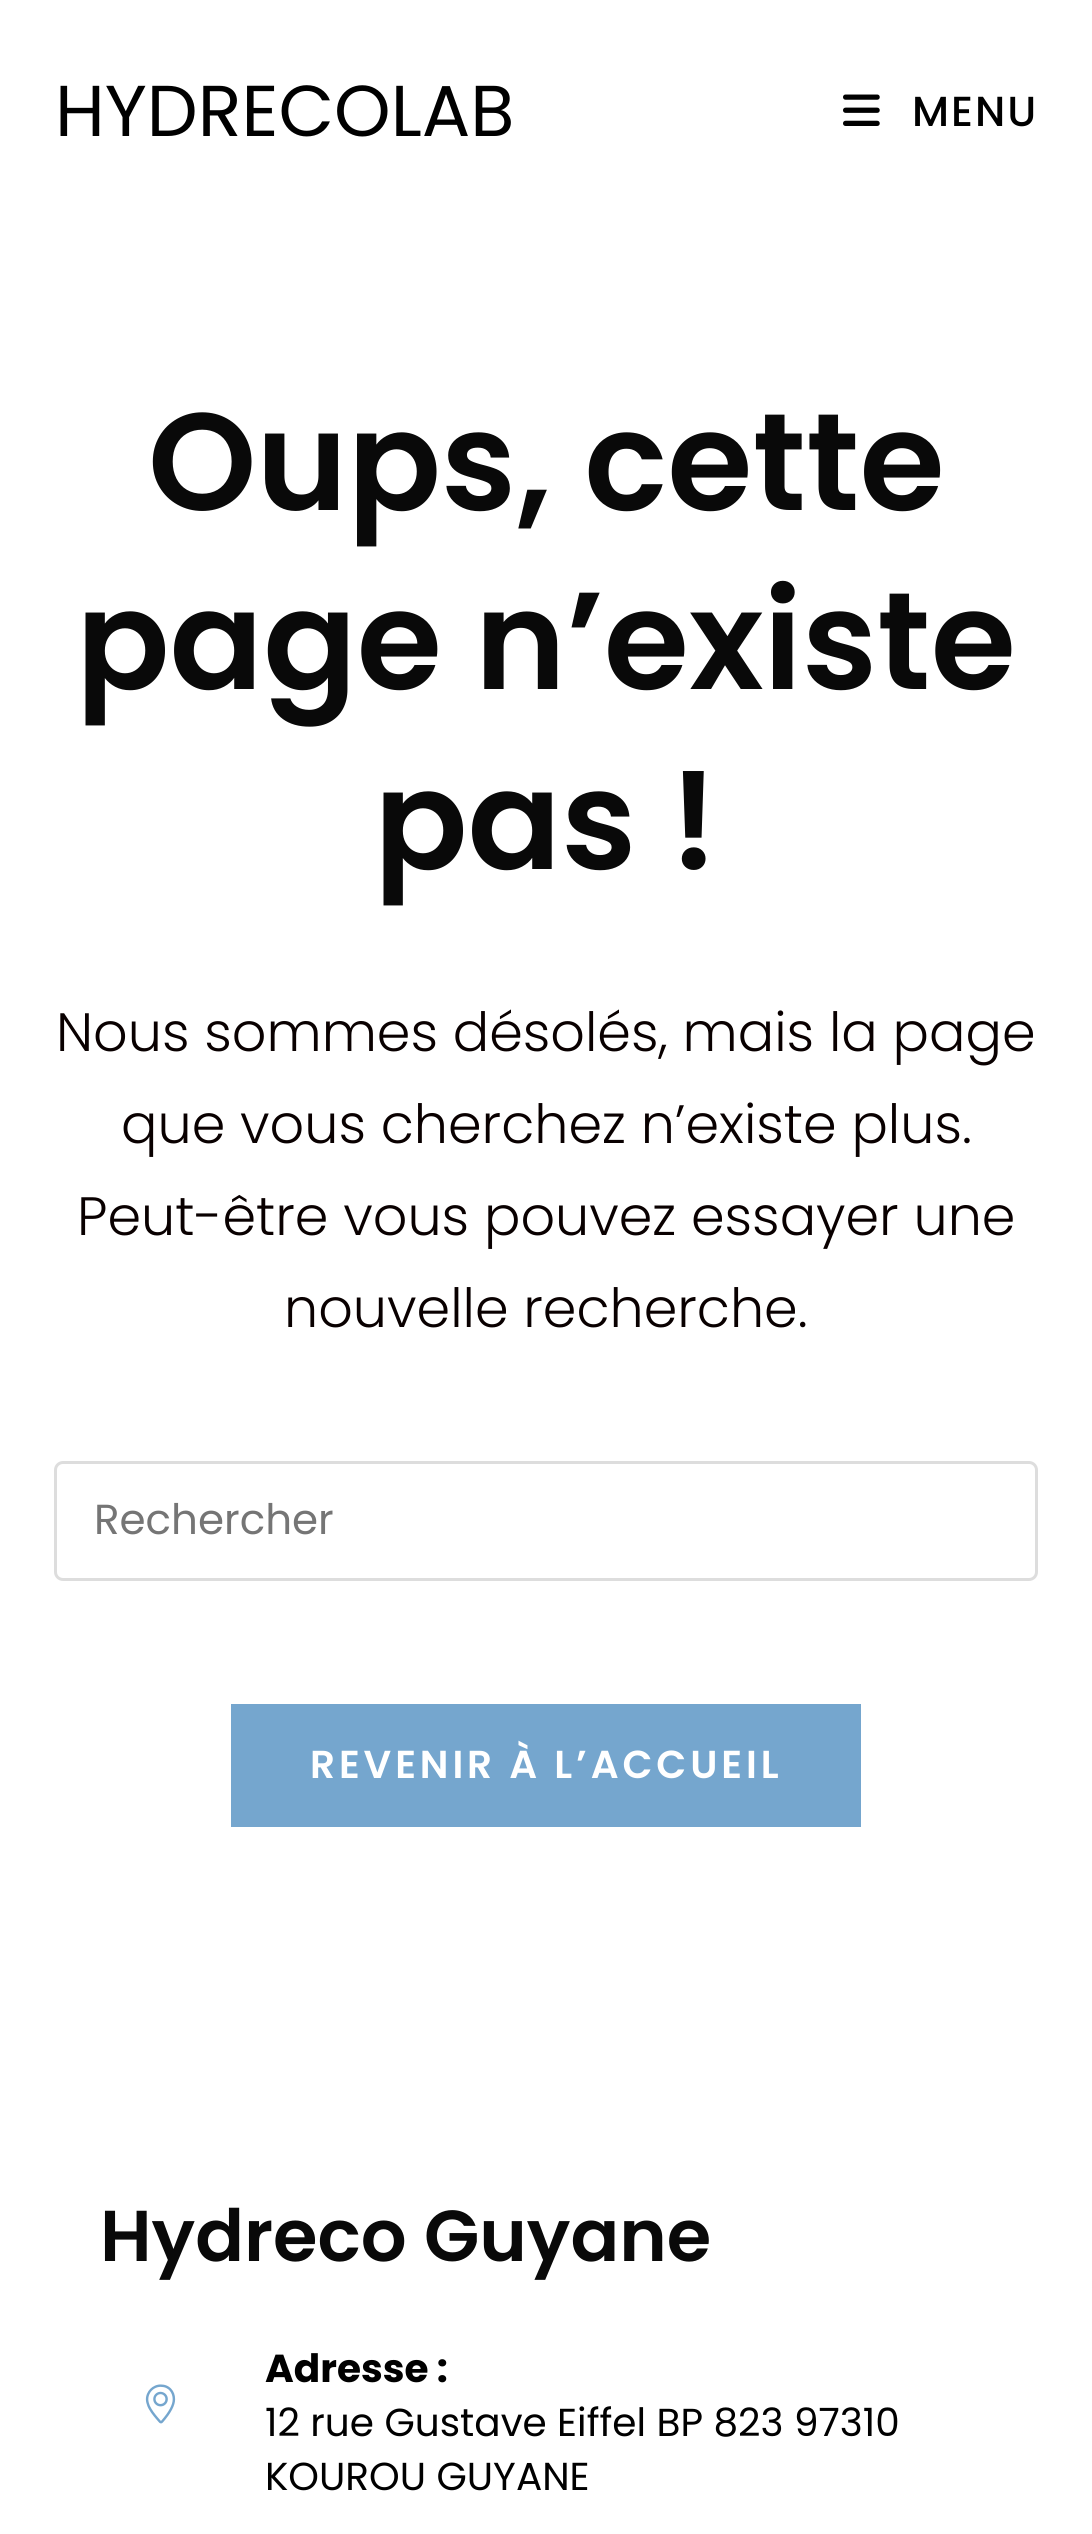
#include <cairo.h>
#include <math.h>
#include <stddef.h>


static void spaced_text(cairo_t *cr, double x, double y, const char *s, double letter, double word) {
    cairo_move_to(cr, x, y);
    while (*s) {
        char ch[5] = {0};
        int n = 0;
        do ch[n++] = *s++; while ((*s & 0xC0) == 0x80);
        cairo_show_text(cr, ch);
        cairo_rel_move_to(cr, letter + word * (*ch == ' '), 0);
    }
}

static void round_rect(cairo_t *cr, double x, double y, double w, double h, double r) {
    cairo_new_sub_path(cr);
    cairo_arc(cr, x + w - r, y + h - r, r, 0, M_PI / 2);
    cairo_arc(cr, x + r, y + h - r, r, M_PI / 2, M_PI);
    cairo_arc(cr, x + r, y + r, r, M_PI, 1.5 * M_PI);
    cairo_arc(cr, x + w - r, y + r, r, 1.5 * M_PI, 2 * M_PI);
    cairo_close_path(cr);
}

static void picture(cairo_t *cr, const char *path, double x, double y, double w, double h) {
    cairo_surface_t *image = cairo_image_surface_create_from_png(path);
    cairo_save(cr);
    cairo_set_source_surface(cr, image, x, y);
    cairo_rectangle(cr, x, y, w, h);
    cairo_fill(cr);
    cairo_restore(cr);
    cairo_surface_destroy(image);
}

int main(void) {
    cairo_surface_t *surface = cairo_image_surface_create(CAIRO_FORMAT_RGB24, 1092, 2534);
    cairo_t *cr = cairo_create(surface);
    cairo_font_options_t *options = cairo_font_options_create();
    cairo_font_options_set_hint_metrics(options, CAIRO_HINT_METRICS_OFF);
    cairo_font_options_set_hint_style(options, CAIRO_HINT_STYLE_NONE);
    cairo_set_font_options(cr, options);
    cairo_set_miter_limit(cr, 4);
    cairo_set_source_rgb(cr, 1, 1, 1);
    cairo_paint(cr);
    cairo_select_font_face(cr, "Poppins", CAIRO_FONT_SLANT_NORMAL, CAIRO_FONT_WEIGHT_NORMAL);
    cairo_set_font_size(cr, 72);
    cairo_set_source_rgb(cr, 0, 0, 0);
    cairo_move_to(cr, 55, 136);
    cairo_show_text(cr, "HYDRECOLAB");
    picture(cr, "img1.png", 843, 94, 37, 32);
    cairo_select_font_face(cr, "Poppins Medium", CAIRO_FONT_SLANT_NORMAL, CAIRO_FONT_WEIGHT_NORMAL);
    cairo_set_font_size(cr, 42);
    spaced_text(cr, 912, 126, "MENU", 2, 0);
    cairo_select_font_face(cr, "Poppins SemiBold", CAIRO_FONT_SLANT_NORMAL, CAIRO_FONT_WEIGHT_NORMAL);
    cairo_set_font_size(cr, 138);
    cairo_set_source_rgb(cr, 0.039, 0.039, 0.039);
    cairo_move_to(cr, 148, 510);
    cairo_show_text(cr, "Oups, cette");
    cairo_move_to(cr, 76, 689);
    cairo_show_text(cr, "page n’existe");
    cairo_move_to(cr, 374, 869);
    cairo_show_text(cr, "pas !");
    cairo_select_font_face(cr, "Poppins Light", CAIRO_FONT_SLANT_NORMAL, CAIRO_FONT_WEIGHT_NORMAL);
    cairo_set_font_size(cr, 54);
    cairo_set_source_rgb(cr, 0.039, 0, 0);
    cairo_move_to(cr, 56, 1051);
    cairo_show_text(cr, "Nous sommes désolés, mais la page");
    cairo_move_to(cr, 121, 1143);
    cairo_show_text(cr, "que vous cherchez n’existe plus.");
    cairo_move_to(cr, 77, 1235);
    cairo_show_text(cr, "Peut-être vous pouvez essayer une");
    cairo_move_to(cr, 284, 1327);
    cairo_show_text(cr, "nouvelle recherche.");
    round_rect(cr, 55.5, 1462.5, 981, 117, 7.5);
    cairo_set_source_rgb(cr, 0.867, 0.867, 0.867);
    cairo_set_line_width(cr, 3);
    cairo_stroke(cr);
    cairo_select_font_face(cr, "Poppins", CAIRO_FONT_SLANT_NORMAL, CAIRO_FONT_WEIGHT_NORMAL);
    cairo_set_font_size(cr, 42);
    cairo_set_source_rgb(cr, 0.459, 0.459, 0.459);
    cairo_move_to(cr, 94, 1534);
    cairo_show_text(cr, "Rechercher");
    cairo_set_source_rgb(cr, 0.459, 0.651, 0.808);
    cairo_rectangle(cr, 231, 1704, 630, 123);
    cairo_fill(cr);
    cairo_select_font_face(cr, "Poppins SemiBold", CAIRO_FONT_SLANT_NORMAL, CAIRO_FONT_WEIGHT_NORMAL);
    cairo_set_font_size(cr, 39);
    cairo_set_source_rgb(cr, 1, 1, 1);
    spaced_text(cr, 310, 1778, "REVENIR À L’ACCUEIL", 3.9, 0);
    cairo_set_font_size(cr, 72);
    cairo_set_source_rgb(cr, 0.039, 0.039, 0.039);
    cairo_move_to(cr, 100, 2261);
    cairo_show_text(cr, "Hydreco Guyane");
    picture(cr, "img2.png", 145, 2384, 31, 40);
    cairo_select_font_face(cr, "Poppins", CAIRO_FONT_SLANT_NORMAL, CAIRO_FONT_WEIGHT_BOLD);
    cairo_set_font_size(cr, 39);
    cairo_set_source_rgb(cr, 0, 0, 0);
    cairo_move_to(cr, 265, 2382);
    cairo_show_text(cr, "Adresse :");
    cairo_select_font_face(cr, "Poppins", CAIRO_FONT_SLANT_NORMAL, CAIRO_FONT_WEIGHT_NORMAL);
    cairo_move_to(cr, 265, 2436);
    cairo_show_text(cr, "12 rue Gustave Eiffel BP 823 97310");
    cairo_move_to(cr, 265, 2490);
    cairo_show_text(cr, "KOUROU GUYANE");
    cairo_surface_write_to_png(surface, "page.png");
    cairo_font_options_destroy(options);
    cairo_destroy(cr);
    cairo_surface_destroy(surface);
    return 0;
}
